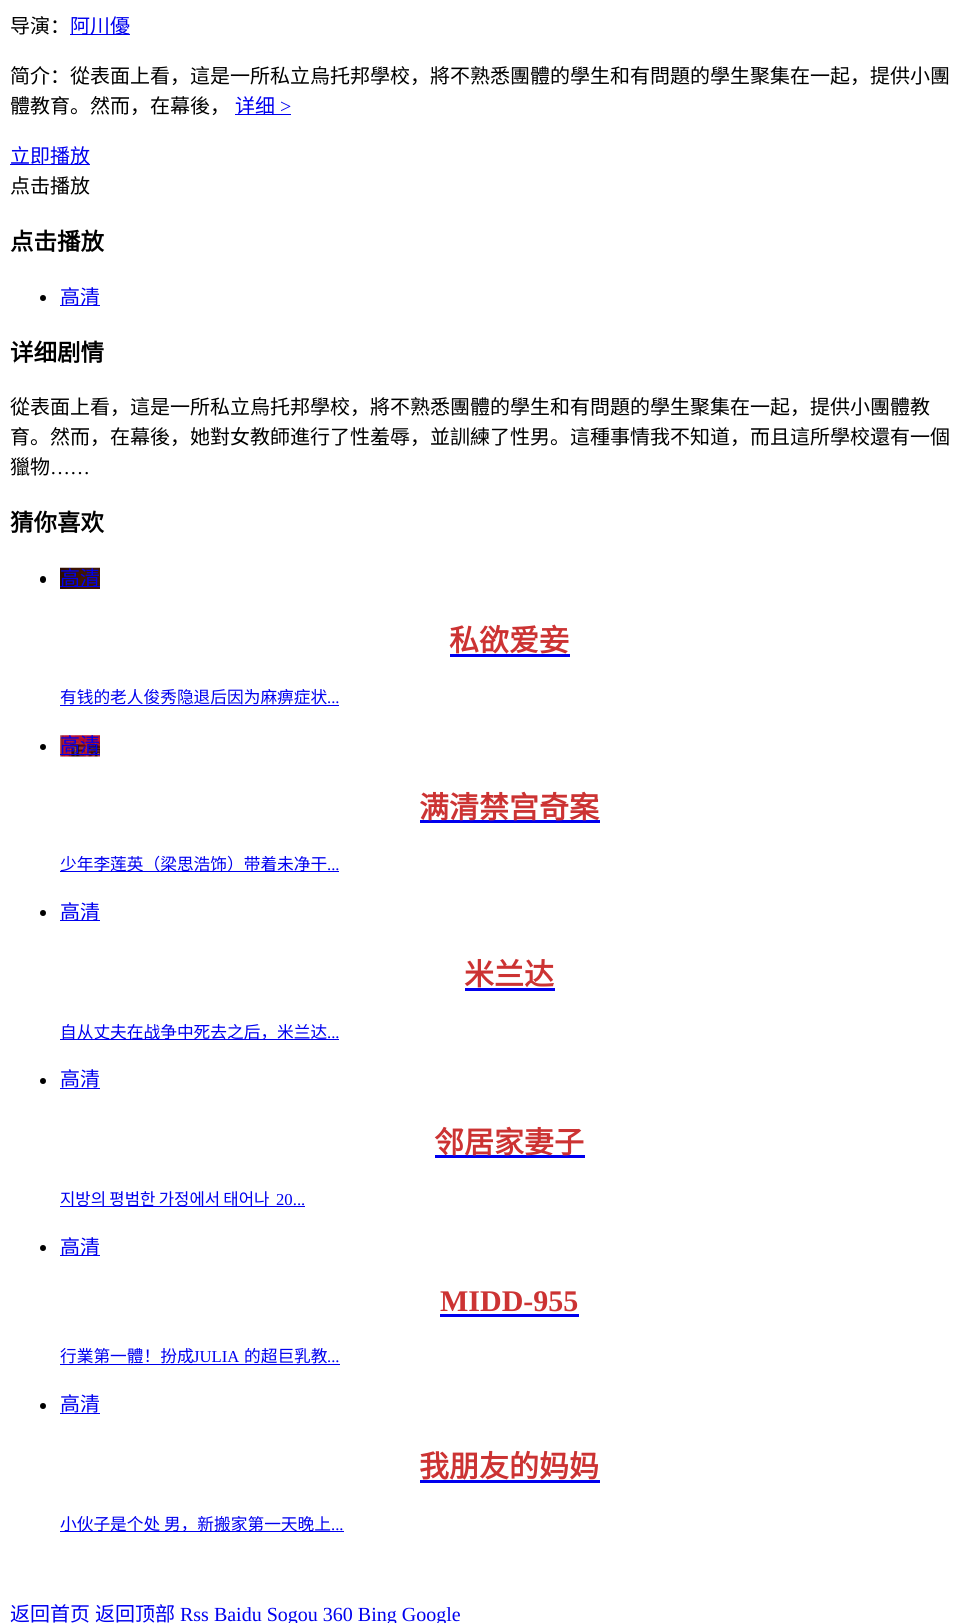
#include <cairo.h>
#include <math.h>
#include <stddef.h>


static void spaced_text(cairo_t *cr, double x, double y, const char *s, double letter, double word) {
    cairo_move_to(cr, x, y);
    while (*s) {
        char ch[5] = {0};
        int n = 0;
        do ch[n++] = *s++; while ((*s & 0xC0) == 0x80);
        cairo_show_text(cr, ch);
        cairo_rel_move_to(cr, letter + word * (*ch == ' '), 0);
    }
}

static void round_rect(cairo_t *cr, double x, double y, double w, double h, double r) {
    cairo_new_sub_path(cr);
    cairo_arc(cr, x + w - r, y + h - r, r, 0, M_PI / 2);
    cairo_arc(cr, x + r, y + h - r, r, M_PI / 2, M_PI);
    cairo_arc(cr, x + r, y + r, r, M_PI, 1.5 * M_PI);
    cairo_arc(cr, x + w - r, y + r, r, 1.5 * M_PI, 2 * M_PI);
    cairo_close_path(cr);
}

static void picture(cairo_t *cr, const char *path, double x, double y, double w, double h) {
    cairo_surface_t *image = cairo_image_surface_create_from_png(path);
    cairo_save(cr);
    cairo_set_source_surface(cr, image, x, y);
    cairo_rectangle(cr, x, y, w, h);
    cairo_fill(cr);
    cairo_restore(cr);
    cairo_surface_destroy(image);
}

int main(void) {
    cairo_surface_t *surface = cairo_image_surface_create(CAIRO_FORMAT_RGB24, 968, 1623);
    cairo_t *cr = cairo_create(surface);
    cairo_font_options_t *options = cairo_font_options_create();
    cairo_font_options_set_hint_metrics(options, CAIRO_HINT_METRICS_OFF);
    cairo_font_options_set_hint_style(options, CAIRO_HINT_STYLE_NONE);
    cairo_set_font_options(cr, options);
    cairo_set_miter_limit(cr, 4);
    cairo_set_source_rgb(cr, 1, 1, 1);
    cairo_paint(cr);
    cairo_select_font_face(cr, "Noto Sans CJK SC", CAIRO_FONT_SLANT_NORMAL, CAIRO_FONT_WEIGHT_NORMAL);
    cairo_set_font_size(cr, 20);
    cairo_set_source_rgb(cr, 0, 0, 0);
    cairo_move_to(cr, 10, 33);
    cairo_show_text(cr, "导演：");
    cairo_set_source_rgb(cr, 0, 0, 0.933);
    cairo_rectangle(cr, 70, 34, 60, 1);
    cairo_fill(cr);
    cairo_move_to(cr, 70, 33);
    cairo_show_text(cr, "阿川優");
    cairo_set_source_rgb(cr, 0, 0, 0);
    cairo_move_to(cr, 10, 83);
    cairo_show_text(cr, "简介：從表面上看，這是一所私立烏托邦學校，將不熟悉團體的學生和有問題的學生聚集在一起，提供小團");
    cairo_move_to(cr, 10, 113);
    cairo_show_text(cr, "體教育。然而，在幕後，");
    cairo_set_source_rgb(cr, 0, 0, 0.933);
    cairo_rectangle(cr, 235, 114, 56, 1);
    cairo_fill(cr);
    cairo_move_to(cr, 235, 113);
    cairo_show_text(cr, "详细");
    cairo_select_font_face(cr, "Liberation Serif", CAIRO_FONT_SLANT_NORMAL, CAIRO_FONT_WEIGHT_NORMAL);
    cairo_move_to(cr, 280, 113);
    cairo_show_text(cr, ">");
    cairo_rectangle(cr, 10, 164, 80, 1);
    cairo_fill(cr);
    cairo_select_font_face(cr, "Noto Sans CJK SC", CAIRO_FONT_SLANT_NORMAL, CAIRO_FONT_WEIGHT_NORMAL);
    cairo_move_to(cr, 10, 163);
    cairo_show_text(cr, "立即播放");
    cairo_set_source_rgb(cr, 0, 0, 0);
    cairo_move_to(cr, 10, 193);
    cairo_show_text(cr, "点击播放");
    cairo_select_font_face(cr, "Noto Sans CJK SC", CAIRO_FONT_SLANT_NORMAL, CAIRO_FONT_WEIGHT_BOLD);
    cairo_set_font_size(cr, 23.5);
    cairo_move_to(cr, 10, 250);
    cairo_show_text(cr, "点击播放");
    cairo_new_path(cr);
    cairo_arc(cr, 43, 298, 3, 0, 2 * M_PI);
    cairo_fill(cr);
    cairo_set_source_rgb(cr, 0, 0, 0.933);
    cairo_rectangle(cr, 60, 305, 40, 1);
    cairo_fill(cr);
    cairo_select_font_face(cr, "Noto Sans CJK SC", CAIRO_FONT_SLANT_NORMAL, CAIRO_FONT_WEIGHT_NORMAL);
    cairo_set_font_size(cr, 20);
    cairo_move_to(cr, 60, 304);
    cairo_show_text(cr, "高清");
    cairo_select_font_face(cr, "Noto Sans CJK SC", CAIRO_FONT_SLANT_NORMAL, CAIRO_FONT_WEIGHT_BOLD);
    cairo_set_font_size(cr, 23.5);
    cairo_set_source_rgb(cr, 0, 0, 0);
    cairo_move_to(cr, 10, 361);
    cairo_show_text(cr, "详细剧情");
    cairo_select_font_face(cr, "Noto Sans CJK SC", CAIRO_FONT_SLANT_NORMAL, CAIRO_FONT_WEIGHT_NORMAL);
    cairo_set_font_size(cr, 20);
    cairo_move_to(cr, 10, 414);
    cairo_show_text(cr, "從表面上看，這是一所私立烏托邦學校，將不熟悉團體的學生和有問題的學生聚集在一起，提供小團體教");
    cairo_move_to(cr, 10, 444);
    cairo_show_text(cr, "育。然而，在幕後，她對女教師進行了性羞辱，並訓練了性男。這種事情我不知道，而且這所學校還有一個");
    cairo_move_to(cr, 10, 474);
    cairo_show_text(cr, "獵物");
    cairo_select_font_face(cr, "Liberation Serif", CAIRO_FONT_SLANT_NORMAL, CAIRO_FONT_WEIGHT_NORMAL);
    cairo_move_to(cr, 50, 474);
    cairo_show_text(cr, "……");
    cairo_select_font_face(cr, "Noto Sans CJK SC", CAIRO_FONT_SLANT_NORMAL, CAIRO_FONT_WEIGHT_BOLD);
    cairo_set_font_size(cr, 23.5);
    cairo_move_to(cr, 10, 531);
    cairo_show_text(cr, "猜你喜欢");
    picture(cr, "img1.png", 60, 567, 40, 22);
    round_rect(cr, 40, 576, 6, 7, 3);
    cairo_fill(cr);
    cairo_set_source_rgb(cr, 0, 0, 0.933);
    cairo_rectangle(cr, 60, 586, 40, 1);
    cairo_fill(cr);
    cairo_select_font_face(cr, "Noto Sans CJK SC", CAIRO_FONT_SLANT_NORMAL, CAIRO_FONT_WEIGHT_NORMAL);
    cairo_set_font_size(cr, 20);
    cairo_move_to(cr, 60, 585);
    cairo_show_text(cr, "高清");
    cairo_select_font_face(cr, "Noto Sans CJK SC", CAIRO_FONT_SLANT_NORMAL, CAIRO_FONT_WEIGHT_BOLD);
    cairo_set_font_size(cr, 30);
    cairo_set_source_rgb(cr, 0.8, 0.2, 0.2);
    cairo_move_to(cr, 449, 651);
    cairo_show_text(cr, "私欲爱妾");
    cairo_set_source_rgb(cr, 0, 0, 0.933);
    cairo_rectangle(cr, 450, 654, 120, 3);
    cairo_fill(cr);
    cairo_select_font_face(cr, "Noto Sans CJK SC", CAIRO_FONT_SLANT_NORMAL, CAIRO_FONT_WEIGHT_NORMAL);
    cairo_set_font_size(cr, 16.7);
    cairo_move_to(cr, 60, 703);
    cairo_show_text(cr, "有钱的老人俊秀隐退后因为麻痹症状");
    cairo_select_font_face(cr, "Liberation Serif", CAIRO_FONT_SLANT_NORMAL, CAIRO_FONT_WEIGHT_NORMAL);
    cairo_move_to(cr, 327, 703);
    cairo_show_text(cr, "...");
    cairo_rectangle(cr, 60, 705, 279, 1);
    cairo_fill(cr);
    picture(cr, "img2.png", 60, 735, 40, 22);
    cairo_set_source_rgb(cr, 0, 0, 0);
    cairo_arc(cr, 43, 747, 3, 0, 2 * M_PI);
    cairo_fill(cr);
    cairo_select_font_face(cr, "Noto Sans CJK SC", CAIRO_FONT_SLANT_NORMAL, CAIRO_FONT_WEIGHT_NORMAL);
    cairo_set_font_size(cr, 20);
    cairo_set_source_rgb(cr, 0, 0, 0.933);
    cairo_move_to(cr, 60, 752);
    cairo_show_text(cr, "高清");
    cairo_rectangle(cr, 60, 754, 40, 1);
    cairo_fill(cr);
    cairo_rectangle(cr, 420, 820, 180, 3);
    cairo_fill(cr);
    cairo_select_font_face(cr, "Noto Sans CJK SC", CAIRO_FONT_SLANT_NORMAL, CAIRO_FONT_WEIGHT_BOLD);
    cairo_set_font_size(cr, 30);
    cairo_set_source_rgb(cr, 0.8, 0.2, 0.2);
    cairo_move_to(cr, 419, 818);
    cairo_show_text(cr, "满清禁宫奇案");
    cairo_set_source_rgb(cr, 0, 0, 0.933);
    cairo_rectangle(cr, 60, 871, 279, 1);
    cairo_fill(cr);
    cairo_select_font_face(cr, "Noto Sans CJK SC", CAIRO_FONT_SLANT_NORMAL, CAIRO_FONT_WEIGHT_NORMAL);
    cairo_set_font_size(cr, 16.7);
    cairo_move_to(cr, 60, 870);
    cairo_show_text(cr, "少年李莲英（梁思浩饰）带着未净干");
    cairo_select_font_face(cr, "Liberation Serif", CAIRO_FONT_SLANT_NORMAL, CAIRO_FONT_WEIGHT_NORMAL);
    cairo_move_to(cr, 327, 870);
    cairo_show_text(cr, "...");
    cairo_set_source_rgb(cr, 0, 0, 0);
    cairo_new_path(cr);
    cairo_arc(cr, 43, 913, 3, 0, 2 * M_PI);
    cairo_fill(cr);
    cairo_set_source_rgb(cr, 0, 0, 0.933);
    cairo_rectangle(cr, 60, 920, 40, 1);
    cairo_fill(cr);
    cairo_select_font_face(cr, "Noto Sans CJK SC", CAIRO_FONT_SLANT_NORMAL, CAIRO_FONT_WEIGHT_NORMAL);
    cairo_set_font_size(cr, 20);
    cairo_move_to(cr, 60, 919);
    cairo_show_text(cr, "高清");
    cairo_select_font_face(cr, "Noto Sans CJK SC", CAIRO_FONT_SLANT_NORMAL, CAIRO_FONT_WEIGHT_BOLD);
    cairo_set_font_size(cr, 30);
    cairo_set_source_rgb(cr, 0.8, 0.2, 0.2);
    cairo_move_to(cr, 464, 985);
    cairo_show_text(cr, "米兰达");
    cairo_set_source_rgb(cr, 0, 0, 0.933);
    cairo_rectangle(cr, 465, 988, 90, 3);
    cairo_fill(cr);
    cairo_rectangle(cr, 60, 1039, 279, 1);
    cairo_fill(cr);
    cairo_select_font_face(cr, "Noto Sans CJK SC", CAIRO_FONT_SLANT_NORMAL, CAIRO_FONT_WEIGHT_NORMAL);
    cairo_set_font_size(cr, 16.7);
    cairo_move_to(cr, 60, 1038);
    cairo_show_text(cr, "自从丈夫在战争中死去之后，米兰达");
    cairo_select_font_face(cr, "Liberation Serif", CAIRO_FONT_SLANT_NORMAL, CAIRO_FONT_WEIGHT_NORMAL);
    cairo_move_to(cr, 327, 1038);
    cairo_show_text(cr, "...");
    cairo_set_source_rgb(cr, 0, 0, 0);
    cairo_new_path(cr);
    cairo_arc(cr, 43, 1081, 3, 0, 2 * M_PI);
    cairo_fill(cr);
    cairo_select_font_face(cr, "Noto Sans CJK SC", CAIRO_FONT_SLANT_NORMAL, CAIRO_FONT_WEIGHT_NORMAL);
    cairo_set_font_size(cr, 20);
    cairo_set_source_rgb(cr, 0, 0, 0.933);
    cairo_move_to(cr, 60, 1086);
    cairo_show_text(cr, "高清");
    cairo_rectangle(cr, 60, 1088, 40, 1);
    cairo_fill(cr);
    cairo_rectangle(cr, 435, 1155, 150, 3);
    cairo_fill(cr);
    cairo_select_font_face(cr, "Noto Sans CJK SC", CAIRO_FONT_SLANT_NORMAL, CAIRO_FONT_WEIGHT_BOLD);
    cairo_set_font_size(cr, 30);
    cairo_set_source_rgb(cr, 0.8, 0.2, 0.2);
    cairo_move_to(cr, 434, 1153);
    cairo_show_text(cr, "邻居家妻子");
    cairo_set_source_rgb(cr, 0, 0, 0.933);
    cairo_rectangle(cr, 60, 1206, 245, 1);
    cairo_fill(cr);
    cairo_select_font_face(cr, "Noto Sans CJK SC", CAIRO_FONT_SLANT_NORMAL, CAIRO_FONT_WEIGHT_NORMAL);
    cairo_set_font_size(cr, 16.7);
    spaced_text(cr, 60, 1205, "지방의 평범한 가정에서 태어나", 0, -0.5);
    cairo_select_font_face(cr, "Liberation Serif", CAIRO_FONT_SLANT_NORMAL, CAIRO_FONT_WEIGHT_NORMAL);
    cairo_move_to(cr, 276, 1205);
    cairo_show_text(cr, "20...");
    cairo_set_source_rgb(cr, 0, 0, 0);
    cairo_new_path(cr);
    cairo_arc(cr, 43, 1248, 3, 0, 2 * M_PI);
    cairo_fill(cr);
    cairo_set_source_rgb(cr, 0, 0, 0.933);
    cairo_rectangle(cr, 60, 1255, 40, 1);
    cairo_fill(cr);
    cairo_select_font_face(cr, "Noto Sans CJK SC", CAIRO_FONT_SLANT_NORMAL, CAIRO_FONT_WEIGHT_NORMAL);
    cairo_set_font_size(cr, 20);
    cairo_move_to(cr, 60, 1254);
    cairo_show_text(cr, "高清");
    cairo_select_font_face(cr, "Liberation Serif", CAIRO_FONT_SLANT_NORMAL, CAIRO_FONT_WEIGHT_BOLD);
    cairo_set_font_size(cr, 30);
    cairo_set_source_rgb(cr, 0.8, 0.2, 0.2);
    cairo_move_to(cr, 440, 1311);
    cairo_show_text(cr, "MIDD-955");
    cairo_set_source_rgb(cr, 0, 0, 0.933);
    cairo_rectangle(cr, 440, 1314, 139, 3);
    cairo_fill(cr);
    cairo_select_font_face(cr, "Noto Sans CJK SC", CAIRO_FONT_SLANT_NORMAL, CAIRO_FONT_WEIGHT_NORMAL);
    cairo_set_font_size(cr, 16.7);
    cairo_move_to(cr, 60, 1362);
    cairo_show_text(cr, "行業第一體！扮成");
    cairo_select_font_face(cr, "Liberation Serif", CAIRO_FONT_SLANT_NORMAL, CAIRO_FONT_WEIGHT_NORMAL);
    cairo_move_to(cr, 193, 1362);
    cairo_show_text(cr, "JULIA");
    cairo_select_font_face(cr, "Noto Sans CJK SC", CAIRO_FONT_SLANT_NORMAL, CAIRO_FONT_WEIGHT_NORMAL);
    cairo_move_to(cr, 244, 1362);
    cairo_show_text(cr, "的超巨乳教");
    cairo_select_font_face(cr, "Liberation Serif", CAIRO_FONT_SLANT_NORMAL, CAIRO_FONT_WEIGHT_NORMAL);
    cairo_move_to(cr, 327, 1362);
    cairo_show_text(cr, "...");
    cairo_rectangle(cr, 60, 1364, 280, 1);
    cairo_fill(cr);
    cairo_set_source_rgb(cr, 0, 0, 0);
    cairo_arc(cr, 43, 1406, 3, 0, 2 * M_PI);
    cairo_fill(cr);
    cairo_select_font_face(cr, "Noto Sans CJK SC", CAIRO_FONT_SLANT_NORMAL, CAIRO_FONT_WEIGHT_NORMAL);
    cairo_set_font_size(cr, 20);
    cairo_set_source_rgb(cr, 0, 0, 0.933);
    cairo_move_to(cr, 60, 1411);
    cairo_show_text(cr, "高清");
    cairo_rectangle(cr, 60, 1413, 40, 1);
    cairo_fill(cr);
    cairo_select_font_face(cr, "Noto Sans CJK SC", CAIRO_FONT_SLANT_NORMAL, CAIRO_FONT_WEIGHT_BOLD);
    cairo_set_font_size(cr, 30);
    cairo_set_source_rgb(cr, 0.8, 0.2, 0.2);
    cairo_move_to(cr, 419, 1477);
    cairo_show_text(cr, "我朋友的妈妈");
    cairo_set_source_rgb(cr, 0, 0, 0.933);
    cairo_rectangle(cr, 420, 1480, 180, 3);
    cairo_fill(cr);
    cairo_rectangle(cr, 60, 1531, 284, 1);
    cairo_fill(cr);
    cairo_select_font_face(cr, "Noto Sans CJK SC", CAIRO_FONT_SLANT_NORMAL, CAIRO_FONT_WEIGHT_NORMAL);
    cairo_set_font_size(cr, 16.7);
    cairo_move_to(cr, 60, 1530);
    cairo_show_text(cr, "小伙子是个处 男，新搬家第一天晚上");
    cairo_select_font_face(cr, "Liberation Serif", CAIRO_FONT_SLANT_NORMAL, CAIRO_FONT_WEIGHT_NORMAL);
    cairo_move_to(cr, 331, 1530);
    cairo_show_text(cr, "...");
    cairo_select_font_face(cr, "Noto Sans CJK SC", CAIRO_FONT_SLANT_NORMAL, CAIRO_FONT_WEIGHT_NORMAL);
    cairo_set_font_size(cr, 20);
    cairo_move_to(cr, 10, 1621);
    cairo_show_text(cr, "返回首页");
    cairo_move_to(cr, 95, 1621);
    cairo_show_text(cr, "返回顶部");
    cairo_select_font_face(cr, "Liberation Serif", CAIRO_FONT_SLANT_NORMAL, CAIRO_FONT_WEIGHT_NORMAL);
    cairo_move_to(cr, 180, 1621);
    cairo_show_text(cr, "Rss Baidu Sogou 360 Bing Google");
    cairo_surface_write_to_png(surface, "page.png");
    cairo_font_options_destroy(options);
    cairo_destroy(cr);
    cairo_surface_destroy(surface);
    return 0;
}
